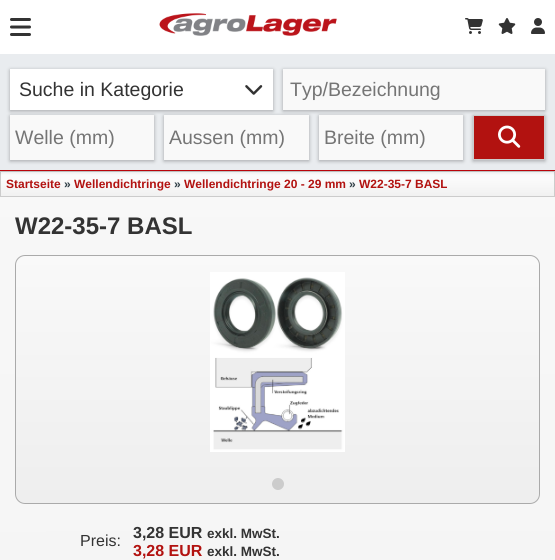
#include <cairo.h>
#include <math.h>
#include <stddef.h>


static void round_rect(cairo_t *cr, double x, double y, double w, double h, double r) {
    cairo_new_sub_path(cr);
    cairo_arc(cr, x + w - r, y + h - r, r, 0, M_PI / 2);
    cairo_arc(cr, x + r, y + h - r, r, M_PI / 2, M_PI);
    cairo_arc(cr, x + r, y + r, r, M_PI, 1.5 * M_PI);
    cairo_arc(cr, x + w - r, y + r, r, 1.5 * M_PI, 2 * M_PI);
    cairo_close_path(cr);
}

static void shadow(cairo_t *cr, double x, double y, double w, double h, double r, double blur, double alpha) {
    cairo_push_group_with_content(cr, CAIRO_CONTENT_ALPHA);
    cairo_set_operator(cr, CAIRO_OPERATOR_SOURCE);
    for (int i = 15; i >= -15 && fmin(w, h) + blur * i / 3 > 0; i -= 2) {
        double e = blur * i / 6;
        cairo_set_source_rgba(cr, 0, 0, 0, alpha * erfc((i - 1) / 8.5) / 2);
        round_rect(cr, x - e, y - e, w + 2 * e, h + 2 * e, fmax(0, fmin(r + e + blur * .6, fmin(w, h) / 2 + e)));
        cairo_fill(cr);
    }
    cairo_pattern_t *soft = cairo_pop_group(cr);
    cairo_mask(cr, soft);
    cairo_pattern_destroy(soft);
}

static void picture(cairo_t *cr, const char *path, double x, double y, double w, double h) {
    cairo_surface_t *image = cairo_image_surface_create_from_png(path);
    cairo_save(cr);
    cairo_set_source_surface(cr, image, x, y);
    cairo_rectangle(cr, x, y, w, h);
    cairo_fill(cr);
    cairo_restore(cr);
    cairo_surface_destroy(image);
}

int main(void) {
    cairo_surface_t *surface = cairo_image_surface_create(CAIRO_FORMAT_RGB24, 555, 560);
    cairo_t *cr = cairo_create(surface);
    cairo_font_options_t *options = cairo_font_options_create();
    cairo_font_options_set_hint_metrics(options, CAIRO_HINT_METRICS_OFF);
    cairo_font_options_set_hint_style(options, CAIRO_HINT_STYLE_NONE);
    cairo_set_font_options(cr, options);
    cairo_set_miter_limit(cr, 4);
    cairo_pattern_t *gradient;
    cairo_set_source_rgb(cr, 1, 1, 1);
    cairo_paint(cr);
    gradient = cairo_pattern_create_linear(277, 0, 278, 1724);
    cairo_pattern_add_color_stop_rgba(gradient, 0, 0.976, 0.976, 0.976, 1);
    cairo_pattern_add_color_stop_rgba(gradient, 1, 0.933, 0.933, 0.933, 1);
    cairo_set_source(cr, gradient);
    cairo_pattern_destroy(gradient);
    cairo_rectangle(cr, 0, 197, 555, 363);
    cairo_fill(cr);
    gradient = cairo_pattern_create_linear(278, 172, 278, 196);
    cairo_pattern_add_color_stop_rgba(gradient, 0, 1, 1, 1, 1);
    cairo_pattern_add_color_stop_rgba(gradient, 1, 0.945, 0.945, 0.945, 1);
    cairo_set_source(cr, gradient);
    cairo_pattern_destroy(gradient);
    cairo_rectangle(cr, 1, 176, 553, 20);
    cairo_fill(cr);
    cairo_rectangle(cr, 0.5, 171.5, 554, 25);
    cairo_set_source_rgb(cr, 0.8, 0.8, 0.8);
    cairo_set_line_width(cr, 1);
    cairo_stroke(cr);
    cairo_set_source_rgb(cr, 0, 0, 0);
    shadow(cr, 0, 2, 555, 171, 0, 2.5, 0.1);
    cairo_set_source_rgb(cr, 1, 1, 1);
    cairo_rectangle(cr, 0, 0, 555, 54);
    cairo_fill(cr);
    picture(cr, "img1.png", 10, 18, 21, 18);
    picture(cr, "img2.png", 159, 13, 178, 23);
    picture(cr, "img3.png", 465, 18, 18, 16);
    picture(cr, "img4.png", 498, 18, 18, 16);
    picture(cr, "img5.png", 531, 18, 14, 16);
    cairo_set_source_rgb(cr, 0.914, 0.925, 0.937);
    cairo_rectangle(cr, 0, 54, 555, 116);
    cairo_fill(cr);
    cairo_set_source_rgb(cr, 0.729, 0.016, 0.043);
    cairo_rectangle(cr, 0, 170, 555, 1);
    cairo_fill(cr);
    cairo_set_source_rgb(cr, 0, 0, 0);
    shadow(cr, 10, 116, 144, 45, 0, 2, 0.3);
    cairo_set_source_rgb(cr, 0.976, 0.976, 0.976);
    cairo_rectangle(cr, 10, 115, 144, 45);
    cairo_fill(cr);
    cairo_set_source_rgb(cr, 0, 0, 0);
    shadow(cr, 283, 70, 262, 41, 0, 2, 0.3);
    cairo_set_source_rgb(cr, 0.976, 0.976, 0.976);
    cairo_rectangle(cr, 283, 69, 262, 41);
    cairo_fill(cr);
    cairo_set_source_rgb(cr, 0, 0, 0);
    shadow(cr, 164, 116, 145, 45, 0, 2, 0.3);
    cairo_set_source_rgb(cr, 0.976, 0.976, 0.976);
    cairo_rectangle(cr, 164, 115, 145, 45);
    cairo_fill(cr);
    cairo_set_source_rgb(cr, 0, 0, 0);
    shadow(cr, 10, 70, 263, 41, 0, 2, 0.3);
    cairo_set_source_rgb(cr, 1, 1, 1);
    cairo_rectangle(cr, 10, 69, 263, 41);
    cairo_fill(cr);
    cairo_select_font_face(cr, "Liberation Sans", CAIRO_FONT_SLANT_NORMAL, CAIRO_FONT_WEIGHT_NORMAL);
    cairo_set_font_size(cr, 19.5);
    cairo_set_source_rgb(cr, 0.2, 0.2, 0.2);
    cairo_move_to(cr, 19, 96);
    cairo_show_text(cr, "Suche in Kategorie");
    picture(cr, "img6.png", 245, 85, 18, 10);
    cairo_set_source_rgb(cr, 0.459, 0.459, 0.459);
    cairo_move_to(cr, 290, 96);
    cairo_show_text(cr, "Typ/Bezeichnung");
    cairo_move_to(cr, 15, 144);
    cairo_show_text(cr, "Welle (mm)");
    cairo_move_to(cr, 169, 144);
    cairo_show_text(cr, "Aussen (mm)");
    cairo_set_source_rgb(cr, 0, 0, 0);
    shadow(cr, 319, 116, 144, 45, 0, 2, 0.3);
    cairo_set_source_rgb(cr, 0.976, 0.976, 0.976);
    cairo_rectangle(cr, 319, 115, 144, 45);
    cairo_fill(cr);
    cairo_set_source_rgb(cr, 0.459, 0.459, 0.459);
    cairo_move_to(cr, 324, 144);
    cairo_show_text(cr, "Breite (mm)");
    cairo_set_source_rgb(cr, 0, 0, 0);
    shadow(cr, 473, 116, 72, 45, 0, 2, 0.3);
    cairo_rectangle(cr, 473.5, 115.5, 71, 44);
    cairo_set_source_rgb(cr, 0.8, 0.8, 0.8);
    cairo_stroke(cr);
    cairo_set_source_rgb(cr, 0.698, 0.071, 0.063);
    cairo_rectangle(cr, 474, 116, 70, 43);
    cairo_fill(cr);
    picture(cr, "img7.png", 498, 125, 23, 23);
    cairo_select_font_face(cr, "Liberation Sans", CAIRO_FONT_SLANT_NORMAL, CAIRO_FONT_WEIGHT_BOLD);
    cairo_set_font_size(cr, 12);
    cairo_move_to(cr, 6, 188);
    cairo_show_text(cr, "Startseite");
    cairo_set_source_rgb(cr, 0.184, 0.243, 0.275);
    cairo_move_to(cr, 64, 188);
    cairo_show_text(cr, "»");
    cairo_set_source_rgb(cr, 0.698, 0.071, 0.063);
    cairo_move_to(cr, 74, 188);
    cairo_show_text(cr, "Wellendichtringe");
    cairo_set_source_rgb(cr, 0.184, 0.243, 0.275);
    cairo_move_to(cr, 174, 188);
    cairo_show_text(cr, "»");
    cairo_set_source_rgb(cr, 0.698, 0.071, 0.063);
    cairo_move_to(cr, 184, 188);
    cairo_show_text(cr, "Wellendichtringe 20 - 29 mm");
    cairo_set_source_rgb(cr, 0.184, 0.243, 0.275);
    cairo_move_to(cr, 349, 188);
    cairo_show_text(cr, "»");
    cairo_set_source_rgb(cr, 0.698, 0.071, 0.063);
    cairo_move_to(cr, 359, 188);
    cairo_show_text(cr, "W22-35-7 BASL");
    cairo_set_font_size(cr, 24);
    cairo_set_source_rgb(cr, 0.2, 0.2, 0.2);
    cairo_move_to(cr, 15, 234);
    cairo_show_text(cr, "W22-35-7 BASL");
    gradient = cairo_pattern_create_linear(278, 256, 278, 503);
    cairo_pattern_add_color_stop_rgba(gradient, 0, 0.976, 0.976, 0.976, 1);
    cairo_pattern_add_color_stop_rgba(gradient, 1, 0.933, 0.933, 0.933, 1);
    cairo_set_source(cr, gradient);
    cairo_pattern_destroy(gradient);
    round_rect(cr, 16, 256, 523, 247, 9);
    cairo_fill(cr);
    round_rect(cr, 15.5, 255.5, 524, 248, 9.5);
    cairo_set_source_rgb(cr, 0.667, 0.667, 0.667);
    cairo_stroke(cr);
    picture(cr, "img8.png", 210, 272, 135, 180);
    cairo_set_source_rgb(cr, 0.8, 0.8, 0.8);
    cairo_arc(cr, 278, 484, 6, 0, 2 * M_PI);
    cairo_fill(cr);
    cairo_select_font_face(cr, "Liberation Sans", CAIRO_FONT_SLANT_NORMAL, CAIRO_FONT_WEIGHT_NORMAL);
    cairo_set_font_size(cr, 16);
    cairo_set_source_rgb(cr, 0.2, 0.2, 0.2);
    cairo_move_to(cr, 80, 546);
    cairo_show_text(cr, "Preis:");
    cairo_select_font_face(cr, "Liberation Sans", CAIRO_FONT_SLANT_NORMAL, CAIRO_FONT_WEIGHT_BOLD);
    cairo_move_to(cr, 133, 538);
    cairo_show_text(cr, "3,28 EUR");
    cairo_set_font_size(cr, 13.5);
    cairo_move_to(cr, 207, 538);
    cairo_show_text(cr, "exkl. MwSt.");
    cairo_set_font_size(cr, 16);
    cairo_set_source_rgb(cr, 0.698, 0.071, 0.063);
    cairo_move_to(cr, 133, 556);
    cairo_show_text(cr, "3,28 EUR");
    cairo_set_font_size(cr, 13.5);
    cairo_set_source_rgb(cr, 0.2, 0.2, 0.2);
    cairo_move_to(cr, 207, 556);
    cairo_show_text(cr, "exkl. MwSt.");
    cairo_surface_write_to_png(surface, "page.png");
    cairo_font_options_destroy(options);
    cairo_destroy(cr);
    cairo_surface_destroy(surface);
    return 0;
}
